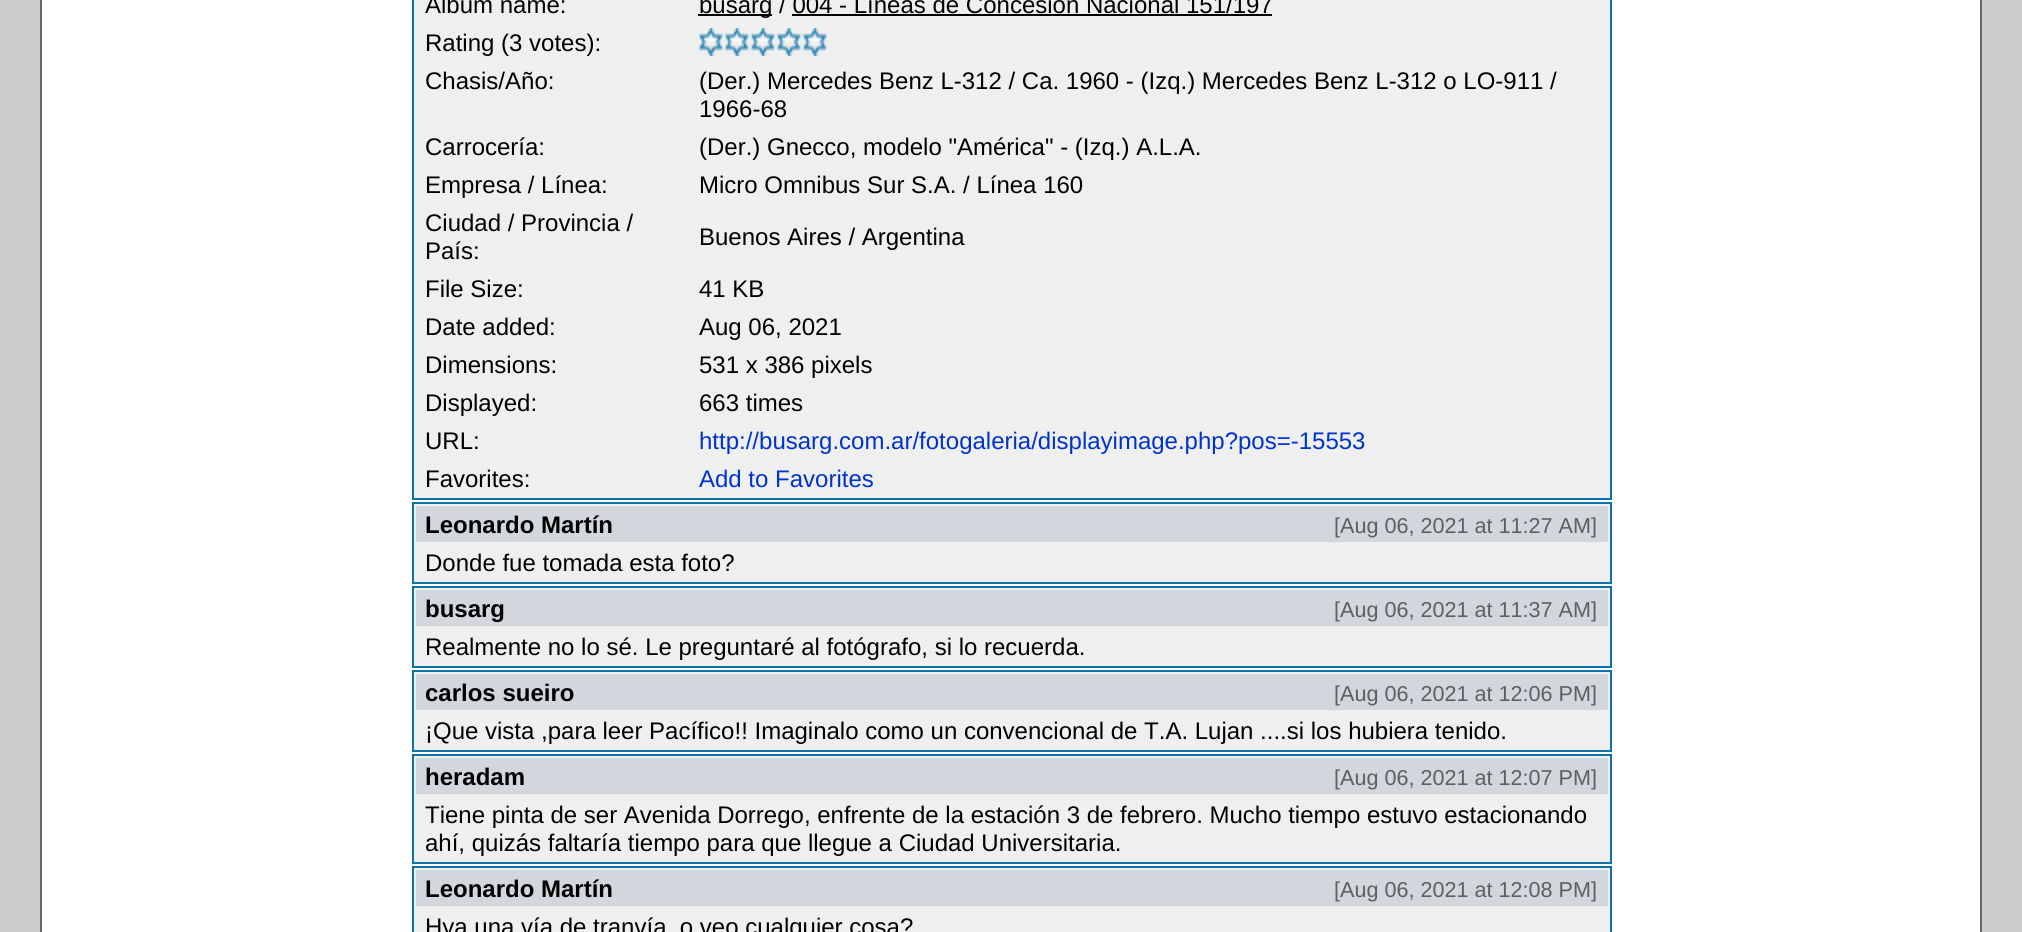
#include <cairo.h>
#include <math.h>
#include <stddef.h>


static void picture(cairo_t *cr, const char *path, double x, double y, double w, double h) {
    cairo_surface_t *image = cairo_image_surface_create_from_png(path);
    cairo_save(cr);
    cairo_set_source_surface(cr, image, x, y);
    cairo_rectangle(cr, x, y, w, h);
    cairo_fill(cr);
    cairo_restore(cr);
    cairo_surface_destroy(image);
}

int main(void) {
    cairo_surface_t *surface = cairo_image_surface_create(CAIRO_FORMAT_RGB24, 2022, 932);
    cairo_t *cr = cairo_create(surface);
    cairo_font_options_t *options = cairo_font_options_create();
    cairo_font_options_set_hint_metrics(options, CAIRO_HINT_METRICS_OFF);
    cairo_font_options_set_hint_style(options, CAIRO_HINT_STYLE_NONE);
    cairo_set_font_options(cr, options);
    cairo_set_miter_limit(cr, 4);
    cairo_set_source_rgb(cr, 0.8, 0.8, 0.8);
    cairo_paint(cr);
    cairo_set_source_rgb(cr, 1, 1, 1);
    cairo_rectangle(cr, 41, -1, 1940, 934);
    cairo_fill_preserve(cr);
    cairo_set_source_rgb(cr, 0.4, 0.4, 0.4);
    cairo_stroke(cr);
    cairo_set_source_rgb(cr, 0.937, 0.937, 0.937);
    cairo_rectangle(cr, 413, -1, 1198, 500);
    cairo_fill_preserve(cr);
    cairo_set_source_rgb(cr, 0.055, 0.447, 0.643);
    cairo_stroke(cr);
    cairo_select_font_face(cr, "Liberation Sans", CAIRO_FONT_SLANT_NORMAL, CAIRO_FONT_WEIGHT_NORMAL);
    cairo_set_font_size(cr, 24);
    cairo_set_source_rgb(cr, 0, 0, 0);
    cairo_move_to(cr, 425, 13);
    cairo_show_text(cr, "Album name:");
    cairo_rectangle(cr, 698, 14, 74, 2);
    cairo_fill(cr);
    cairo_move_to(cr, 699, 13);
    cairo_show_text(cr, "busarg / 004 - Líneas de Concesión Nacional 151/197");
    cairo_rectangle(cr, 792, 14, 480, 2);
    cairo_fill(cr);
    cairo_move_to(cr, 425, 51);
    cairo_show_text(cr, "Rating (3 votes):");
    picture(cr, "img1.png", 698, 28, 130, 28);
    cairo_move_to(cr, 425, 89);
    cairo_show_text(cr, "Chasis/Año:");
    cairo_move_to(cr, 699, 89);
    cairo_show_text(cr, "(Der.) Mercedes Benz L-312 / Ca. 1960 - (Izq.) Mercedes Benz L-312 o LO-911 /");
    cairo_move_to(cr, 699, 117);
    cairo_show_text(cr, "1966-68");
    cairo_move_to(cr, 425, 155);
    cairo_show_text(cr, "Carrocería:");
    cairo_move_to(cr, 699, 155);
    cairo_show_text(cr, "(Der.) Gnecco, modelo \"América\" - (Izq.) A.L.A.");
    cairo_move_to(cr, 425, 193);
    cairo_show_text(cr, "Empresa / Línea:");
    cairo_move_to(cr, 699, 193);
    cairo_show_text(cr, "Micro Omnibus Sur S.A. / Línea 160");
    cairo_move_to(cr, 425, 231);
    cairo_show_text(cr, "Ciudad / Provincia /");
    cairo_move_to(cr, 425, 259);
    cairo_show_text(cr, "País:");
    cairo_move_to(cr, 699, 245);
    cairo_show_text(cr, "Buenos Aires / Argentina");
    cairo_move_to(cr, 425, 297);
    cairo_show_text(cr, "File Size:");
    cairo_move_to(cr, 699, 297);
    cairo_show_text(cr, "41 KB");
    cairo_move_to(cr, 425, 335);
    cairo_show_text(cr, "Date added:");
    cairo_move_to(cr, 699, 335);
    cairo_show_text(cr, "Aug 06, 2021");
    cairo_move_to(cr, 425, 373);
    cairo_show_text(cr, "Dimensions:");
    cairo_move_to(cr, 699, 373);
    cairo_show_text(cr, "531 x 386 pixels");
    cairo_move_to(cr, 425, 411);
    cairo_show_text(cr, "Displayed:");
    cairo_move_to(cr, 699, 411);
    cairo_show_text(cr, "663 times");
    cairo_move_to(cr, 425, 449);
    cairo_show_text(cr, "URL:");
    cairo_set_source_rgb(cr, 0, 0.2, 0.8);
    cairo_move_to(cr, 699, 449);
    cairo_show_text(cr, "http://busarg.com.ar/fotogaleria/displayimage.php?pos=-15553");
    cairo_set_source_rgb(cr, 0, 0, 0);
    cairo_move_to(cr, 425, 487);
    cairo_show_text(cr, "Favorites:");
    cairo_set_source_rgb(cr, 0, 0.2, 0.8);
    cairo_move_to(cr, 699, 487);
    cairo_show_text(cr, "Add to Favorites");
    cairo_set_source_rgb(cr, 0.937, 0.937, 0.937);
    cairo_rectangle(cr, 413, 503, 1198, 80);
    cairo_fill_preserve(cr);
    cairo_set_source_rgb(cr, 0.055, 0.447, 0.643);
    cairo_stroke(cr);
    cairo_set_source_rgb(cr, 0.82, 0.843, 0.863);
    cairo_rectangle(cr, 416, 506, 1192, 36);
    cairo_fill(cr);
    cairo_select_font_face(cr, "Liberation Sans", CAIRO_FONT_SLANT_NORMAL, CAIRO_FONT_WEIGHT_BOLD);
    cairo_set_source_rgb(cr, 0, 0, 0);
    cairo_move_to(cr, 425, 533);
    cairo_show_text(cr, "Leonardo Martín");
    cairo_select_font_face(cr, "Liberation Sans", CAIRO_FONT_SLANT_NORMAL, CAIRO_FONT_WEIGHT_NORMAL);
    cairo_set_font_size(cr, 21.6);
    cairo_set_source_rgb(cr, 0.373, 0.373, 0.373);
    cairo_move_to(cr, 1334, 533);
    cairo_show_text(cr, "[Aug 06, 2021 at 11:27 AM]");
    cairo_set_font_size(cr, 24);
    cairo_set_source_rgb(cr, 0, 0, 0);
    cairo_move_to(cr, 425, 571);
    cairo_show_text(cr, "Donde fue tomada esta foto?");
    cairo_set_source_rgb(cr, 0.937, 0.937, 0.937);
    cairo_rectangle(cr, 413, 587, 1198, 80);
    cairo_fill_preserve(cr);
    cairo_set_source_rgb(cr, 0.055, 0.447, 0.643);
    cairo_stroke(cr);
    cairo_set_source_rgb(cr, 0.82, 0.843, 0.863);
    cairo_rectangle(cr, 416, 590, 1192, 36);
    cairo_fill(cr);
    cairo_select_font_face(cr, "Liberation Sans", CAIRO_FONT_SLANT_NORMAL, CAIRO_FONT_WEIGHT_BOLD);
    cairo_set_source_rgb(cr, 0, 0, 0);
    cairo_move_to(cr, 425, 617);
    cairo_show_text(cr, "busarg");
    cairo_select_font_face(cr, "Liberation Sans", CAIRO_FONT_SLANT_NORMAL, CAIRO_FONT_WEIGHT_NORMAL);
    cairo_set_font_size(cr, 21.6);
    cairo_set_source_rgb(cr, 0.373, 0.373, 0.373);
    cairo_move_to(cr, 1334, 617);
    cairo_show_text(cr, "[Aug 06, 2021 at 11:37 AM]");
    cairo_set_font_size(cr, 24);
    cairo_set_source_rgb(cr, 0, 0, 0);
    cairo_move_to(cr, 425, 655);
    cairo_show_text(cr, "Realmente no lo sé. Le preguntaré al fotógrafo, si lo recuerda.");
    cairo_set_source_rgb(cr, 0.937, 0.937, 0.937);
    cairo_rectangle(cr, 413, 671, 1198, 80);
    cairo_fill_preserve(cr);
    cairo_set_source_rgb(cr, 0.055, 0.447, 0.643);
    cairo_stroke(cr);
    cairo_set_source_rgb(cr, 0.82, 0.843, 0.863);
    cairo_rectangle(cr, 416, 674, 1192, 36);
    cairo_fill(cr);
    cairo_select_font_face(cr, "Liberation Sans", CAIRO_FONT_SLANT_NORMAL, CAIRO_FONT_WEIGHT_BOLD);
    cairo_set_source_rgb(cr, 0, 0, 0);
    cairo_move_to(cr, 425, 701);
    cairo_show_text(cr, "carlos sueiro");
    cairo_select_font_face(cr, "Liberation Sans", CAIRO_FONT_SLANT_NORMAL, CAIRO_FONT_WEIGHT_NORMAL);
    cairo_set_font_size(cr, 21.6);
    cairo_set_source_rgb(cr, 0.373, 0.373, 0.373);
    cairo_move_to(cr, 1334, 701);
    cairo_show_text(cr, "[Aug 06, 2021 at 12:06 PM]");
    cairo_set_font_size(cr, 24);
    cairo_set_source_rgb(cr, 0, 0, 0);
    cairo_move_to(cr, 425, 739);
    cairo_show_text(cr, "¡Que vista ,para leer Pacífico!! Imaginalo como un convencional de T.A. Lujan ....si los hubiera tenido.");
    cairo_set_source_rgb(cr, 0.937, 0.937, 0.937);
    cairo_rectangle(cr, 413, 755, 1198, 108);
    cairo_fill_preserve(cr);
    cairo_set_source_rgb(cr, 0.055, 0.447, 0.643);
    cairo_stroke(cr);
    cairo_set_source_rgb(cr, 0.82, 0.843, 0.863);
    cairo_rectangle(cr, 416, 758, 1192, 36);
    cairo_fill(cr);
    cairo_select_font_face(cr, "Liberation Sans", CAIRO_FONT_SLANT_NORMAL, CAIRO_FONT_WEIGHT_BOLD);
    cairo_set_source_rgb(cr, 0, 0, 0);
    cairo_move_to(cr, 425, 785);
    cairo_show_text(cr, "heradam");
    cairo_select_font_face(cr, "Liberation Sans", CAIRO_FONT_SLANT_NORMAL, CAIRO_FONT_WEIGHT_NORMAL);
    cairo_set_font_size(cr, 21.6);
    cairo_set_source_rgb(cr, 0.373, 0.373, 0.373);
    cairo_move_to(cr, 1334, 785);
    cairo_show_text(cr, "[Aug 06, 2021 at 12:07 PM]");
    cairo_set_font_size(cr, 24);
    cairo_set_source_rgb(cr, 0, 0, 0);
    cairo_move_to(cr, 425, 823);
    cairo_show_text(cr, "Tiene pinta de ser Avenida Dorrego, enfrente de la estación 3 de febrero. Mucho tiempo estuvo estacionando");
    cairo_move_to(cr, 425, 851);
    cairo_show_text(cr, "ahí, quizás faltaría tiempo para que llegue a Ciudad Universitaria.");
    cairo_set_source_rgb(cr, 0.937, 0.937, 0.937);
    cairo_rectangle(cr, 413, 867, 1198, 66);
    cairo_fill_preserve(cr);
    cairo_set_source_rgb(cr, 0.055, 0.447, 0.643);
    cairo_stroke(cr);
    cairo_set_source_rgb(cr, 0.82, 0.843, 0.863);
    cairo_rectangle(cr, 416, 870, 1192, 36);
    cairo_fill(cr);
    cairo_select_font_face(cr, "Liberation Sans", CAIRO_FONT_SLANT_NORMAL, CAIRO_FONT_WEIGHT_BOLD);
    cairo_set_source_rgb(cr, 0, 0, 0);
    cairo_move_to(cr, 425, 897);
    cairo_show_text(cr, "Leonardo Martín");
    cairo_select_font_face(cr, "Liberation Sans", CAIRO_FONT_SLANT_NORMAL, CAIRO_FONT_WEIGHT_NORMAL);
    cairo_set_font_size(cr, 21.6);
    cairo_set_source_rgb(cr, 0.373, 0.373, 0.373);
    cairo_move_to(cr, 1334, 897);
    cairo_show_text(cr, "[Aug 06, 2021 at 12:08 PM]");
    cairo_set_font_size(cr, 24);
    cairo_set_source_rgb(cr, 0, 0, 0);
    cairo_move_to(cr, 425, 935);
    cairo_show_text(cr, "Hya una vía de tranvía, o veo cualquier cosa?");
    cairo_surface_write_to_png(surface, "page.png");
    cairo_font_options_destroy(options);
    cairo_destroy(cr);
    cairo_surface_destroy(surface);
    return 0;
}
